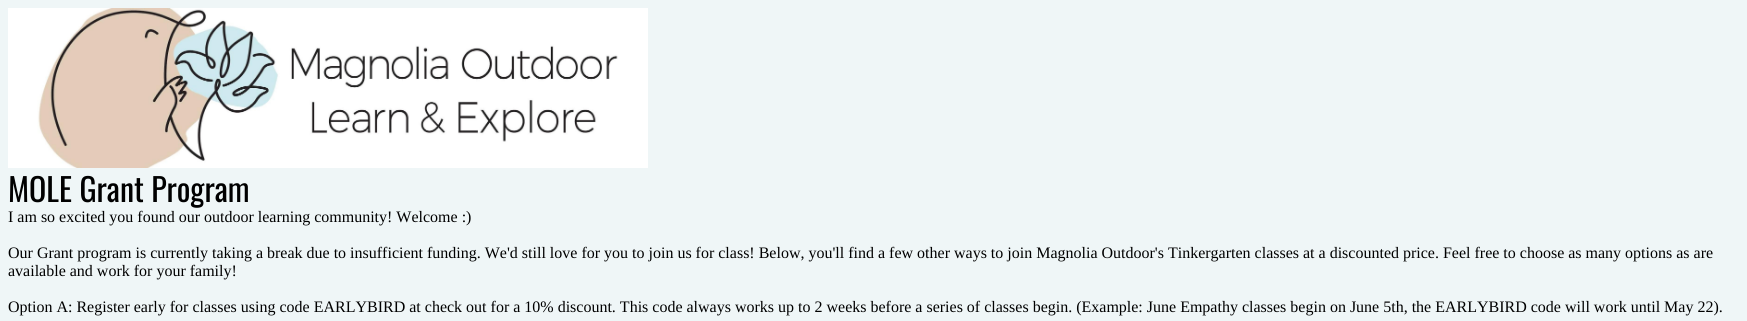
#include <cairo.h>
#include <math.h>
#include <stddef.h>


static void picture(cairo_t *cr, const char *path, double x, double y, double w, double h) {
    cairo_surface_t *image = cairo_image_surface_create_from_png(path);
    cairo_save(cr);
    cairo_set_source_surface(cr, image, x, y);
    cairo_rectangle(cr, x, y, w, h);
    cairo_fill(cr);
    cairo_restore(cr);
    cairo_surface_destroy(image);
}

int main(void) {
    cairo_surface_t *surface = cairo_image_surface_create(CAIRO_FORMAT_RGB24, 1747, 321);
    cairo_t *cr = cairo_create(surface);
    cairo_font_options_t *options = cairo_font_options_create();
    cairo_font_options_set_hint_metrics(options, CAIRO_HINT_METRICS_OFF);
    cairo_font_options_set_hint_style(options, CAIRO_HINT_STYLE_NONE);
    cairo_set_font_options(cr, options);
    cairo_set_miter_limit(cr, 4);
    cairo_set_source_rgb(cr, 0.937, 0.961, 0.965);
    cairo_paint(cr);
    picture(cr, "img1.png", 8, 8, 640, 160);
    cairo_select_font_face(cr, "Oswald", CAIRO_FONT_SLANT_NORMAL, CAIRO_FONT_WEIGHT_NORMAL);
    cairo_set_font_size(cr, 32);
    cairo_set_source_rgb(cr, 0, 0, 0);
    cairo_move_to(cr, 8, 202);
    cairo_show_text(cr, "MOLE Grant Program");
    cairo_select_font_face(cr, "Liberation Serif", CAIRO_FONT_SLANT_NORMAL, CAIRO_FONT_WEIGHT_NORMAL);
    cairo_set_font_size(cr, 16);
    cairo_move_to(cr, 8, 222);
    cairo_show_text(cr, "I am so excited you found our outdoor learning community! Welcome :)");
    cairo_move_to(cr, 8, 258);
    cairo_show_text(cr, "Our Grant program is currently taking a break due to insufficient funding. We'd still love for you to join us for class! Below, you'll find a few other ways to join Magnolia Outdoor's Tinkergarten classes at a discounted price. Feel free to choose as many options as are");
    cairo_move_to(cr, 8, 276);
    cairo_show_text(cr, "available and work for your family!");
    cairo_move_to(cr, 8, 312);
    cairo_show_text(cr, "Option A: Register early for classes using code EARLYBIRD at check out for a 10% discount. This code always works up to 2 weeks before a series of classes begin. (Example: June Empathy classes begin on June 5th, the EARLYBIRD code will work until May 22).");
    cairo_surface_write_to_png(surface, "page.png");
    cairo_font_options_destroy(options);
    cairo_destroy(cr);
    cairo_surface_destroy(surface);
    return 0;
}
